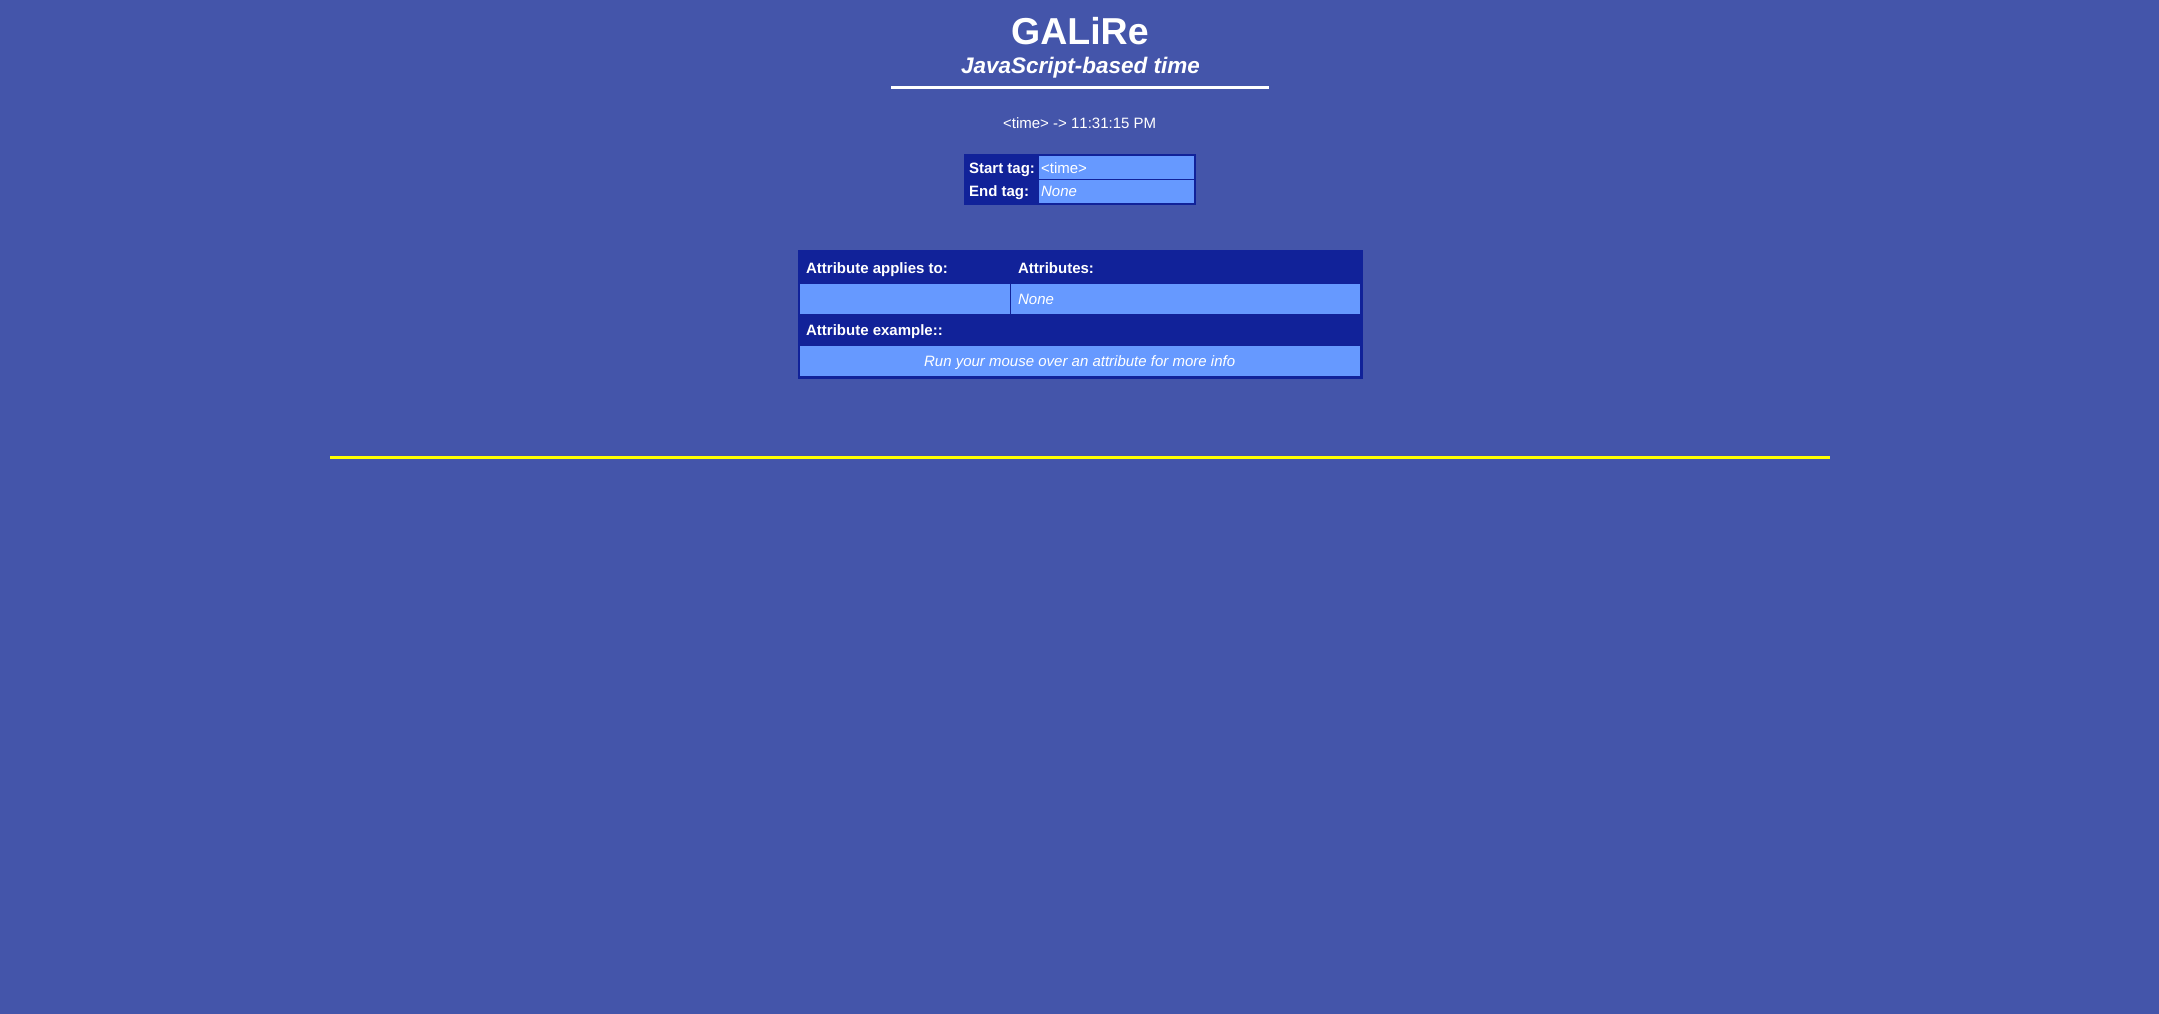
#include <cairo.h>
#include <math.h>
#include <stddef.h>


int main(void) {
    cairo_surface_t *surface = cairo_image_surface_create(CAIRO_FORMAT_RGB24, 2159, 1014);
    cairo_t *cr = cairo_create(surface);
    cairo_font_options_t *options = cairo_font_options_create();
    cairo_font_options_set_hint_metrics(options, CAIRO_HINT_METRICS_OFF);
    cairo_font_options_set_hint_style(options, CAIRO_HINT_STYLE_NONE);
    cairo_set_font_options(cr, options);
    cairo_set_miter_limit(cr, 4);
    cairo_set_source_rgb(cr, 0.267, 0.333, 0.667);
    cairo_paint(cr);
    cairo_select_font_face(cr, "Liberation Sans", CAIRO_FONT_SLANT_NORMAL, CAIRO_FONT_WEIGHT_BOLD);
    cairo_set_font_size(cr, 37.5);
    cairo_set_source_rgb(cr, 1, 1, 1);
    cairo_move_to(cr, 1011, 44);
    cairo_show_text(cr, "GALiRe");
    cairo_select_font_face(cr, "Liberation Sans", CAIRO_FONT_SLANT_ITALIC, CAIRO_FONT_WEIGHT_BOLD);
    cairo_set_font_size(cr, 22.5);
    cairo_move_to(cr, 961, 73);
    cairo_show_text(cr, "JavaScript-based time");
    cairo_rectangle(cr, 891, 86, 378, 3);
    cairo_fill(cr);
    cairo_select_font_face(cr, "Liberation Sans", CAIRO_FONT_SLANT_NORMAL, CAIRO_FONT_WEIGHT_NORMAL);
    cairo_set_font_size(cr, 15);
    cairo_move_to(cr, 1003, 128);
    cairo_show_text(cr, "<time> -> 11:31:15 PM");
    cairo_set_source_rgb(cr, 0.067, 0.133, 0.6);
    cairo_rectangle(cr, 964, 154, 232, 51);
    cairo_fill(cr);
    cairo_select_font_face(cr, "Liberation Sans", CAIRO_FONT_SLANT_NORMAL, CAIRO_FONT_WEIGHT_BOLD);
    cairo_set_source_rgb(cr, 1, 1, 1);
    cairo_move_to(cr, 969, 173);
    cairo_show_text(cr, "Start tag:");
    cairo_set_source_rgb(cr, 0.4, 0.6, 1);
    cairo_rectangle(cr, 1039, 156, 155, 23);
    cairo_fill(cr);
    cairo_select_font_face(cr, "Liberation Sans", CAIRO_FONT_SLANT_NORMAL, CAIRO_FONT_WEIGHT_NORMAL);
    cairo_set_source_rgb(cr, 1, 1, 1);
    cairo_move_to(cr, 1041, 173);
    cairo_show_text(cr, "<time>");
    cairo_select_font_face(cr, "Liberation Sans", CAIRO_FONT_SLANT_NORMAL, CAIRO_FONT_WEIGHT_BOLD);
    cairo_move_to(cr, 969, 196);
    cairo_show_text(cr, "End tag:");
    cairo_set_source_rgb(cr, 0.4, 0.6, 1);
    cairo_rectangle(cr, 1039, 180, 155, 23);
    cairo_fill(cr);
    cairo_select_font_face(cr, "Liberation Sans", CAIRO_FONT_SLANT_ITALIC, CAIRO_FONT_WEIGHT_NORMAL);
    cairo_set_source_rgb(cr, 1, 1, 1);
    cairo_move_to(cr, 1041, 196);
    cairo_show_text(cr, "None");
    cairo_set_source_rgb(cr, 0.067, 0.133, 0.6);
    cairo_rectangle(cr, 798, 250, 565, 129);
    cairo_fill(cr);
    cairo_select_font_face(cr, "Liberation Sans", CAIRO_FONT_SLANT_NORMAL, CAIRO_FONT_WEIGHT_BOLD);
    cairo_set_source_rgb(cr, 1, 1, 1);
    cairo_move_to(cr, 806, 273);
    cairo_show_text(cr, "Attribute applies to:");
    cairo_move_to(cr, 1018, 273);
    cairo_show_text(cr, "Attributes:");
    cairo_set_source_rgb(cr, 0.4, 0.6, 1);
    cairo_rectangle(cr, 800, 284, 210, 30);
    cairo_fill(cr);
    cairo_rectangle(cr, 1011, 284, 349, 30);
    cairo_fill(cr);
    cairo_select_font_face(cr, "Liberation Sans", CAIRO_FONT_SLANT_ITALIC, CAIRO_FONT_WEIGHT_NORMAL);
    cairo_set_source_rgb(cr, 1, 1, 1);
    cairo_move_to(cr, 1018, 304);
    cairo_show_text(cr, "None");
    cairo_select_font_face(cr, "Liberation Sans", CAIRO_FONT_SLANT_NORMAL, CAIRO_FONT_WEIGHT_BOLD);
    cairo_move_to(cr, 806, 335);
    cairo_show_text(cr, "Attribute example::");
    cairo_set_source_rgb(cr, 0.4, 0.6, 1);
    cairo_rectangle(cr, 800, 346, 560, 30);
    cairo_fill(cr);
    cairo_select_font_face(cr, "Liberation Sans", CAIRO_FONT_SLANT_ITALIC, CAIRO_FONT_WEIGHT_NORMAL);
    cairo_set_source_rgb(cr, 1, 1, 1);
    cairo_move_to(cr, 924, 366);
    cairo_show_text(cr, "Run your mouse over an attribute for more info");
    cairo_set_source_rgb(cr, 1, 1, 0);
    cairo_rectangle(cr, 330, 456, 1500, 3);
    cairo_fill(cr);
    cairo_surface_write_to_png(surface, "page.png");
    cairo_font_options_destroy(options);
    cairo_destroy(cr);
    cairo_surface_destroy(surface);
    return 0;
}
